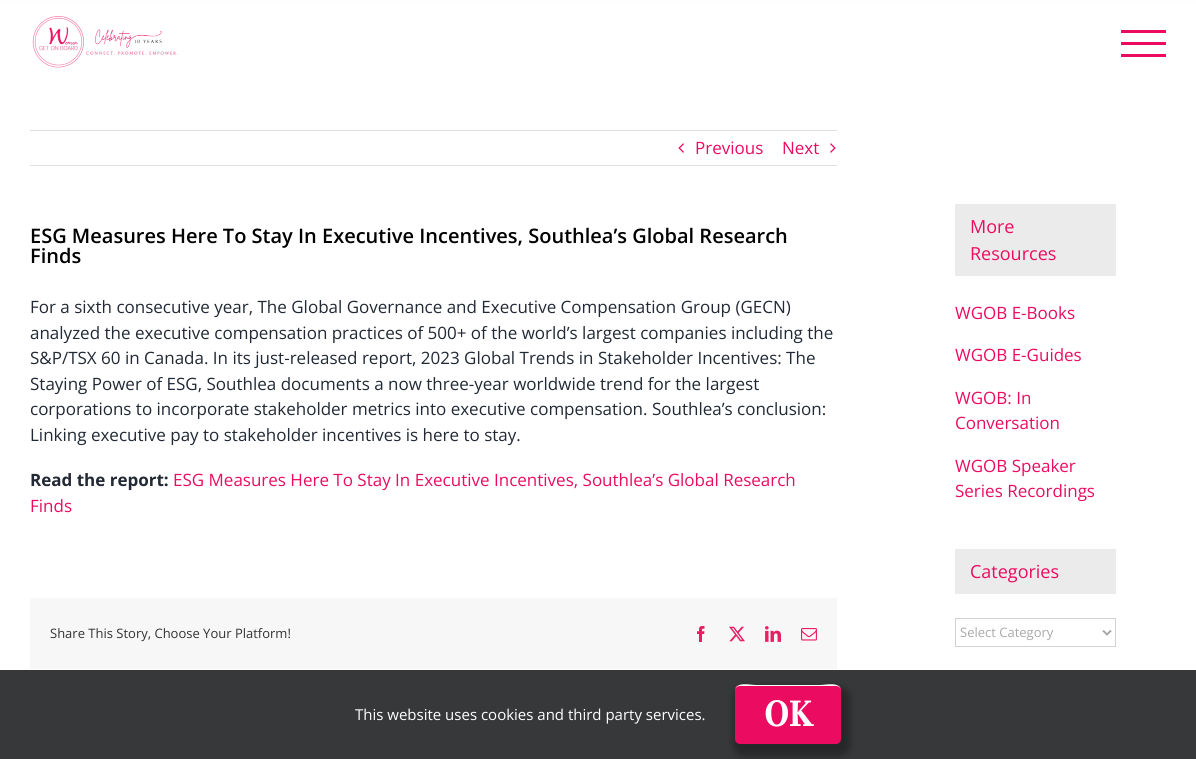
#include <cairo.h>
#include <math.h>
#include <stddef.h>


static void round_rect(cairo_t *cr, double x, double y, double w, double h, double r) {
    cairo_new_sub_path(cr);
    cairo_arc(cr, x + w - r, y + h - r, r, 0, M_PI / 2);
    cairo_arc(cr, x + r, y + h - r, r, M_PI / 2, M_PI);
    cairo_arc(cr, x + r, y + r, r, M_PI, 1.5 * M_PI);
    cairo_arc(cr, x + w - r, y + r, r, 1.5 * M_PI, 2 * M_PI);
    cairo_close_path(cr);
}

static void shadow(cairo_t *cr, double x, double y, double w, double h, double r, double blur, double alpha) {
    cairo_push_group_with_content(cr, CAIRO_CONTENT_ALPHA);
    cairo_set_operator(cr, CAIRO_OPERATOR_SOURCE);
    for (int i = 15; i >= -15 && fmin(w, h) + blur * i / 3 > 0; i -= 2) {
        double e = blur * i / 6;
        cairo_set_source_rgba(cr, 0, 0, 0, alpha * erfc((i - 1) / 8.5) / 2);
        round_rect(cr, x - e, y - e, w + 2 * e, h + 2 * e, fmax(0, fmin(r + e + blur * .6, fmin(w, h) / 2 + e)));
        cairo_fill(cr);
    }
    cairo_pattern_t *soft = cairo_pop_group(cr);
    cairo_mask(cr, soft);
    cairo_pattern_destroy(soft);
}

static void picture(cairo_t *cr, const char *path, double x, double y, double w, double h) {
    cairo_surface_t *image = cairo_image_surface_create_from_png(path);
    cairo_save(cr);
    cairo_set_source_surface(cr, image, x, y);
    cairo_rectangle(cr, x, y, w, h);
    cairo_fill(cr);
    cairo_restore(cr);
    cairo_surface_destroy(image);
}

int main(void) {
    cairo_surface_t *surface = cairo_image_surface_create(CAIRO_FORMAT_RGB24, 1196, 759);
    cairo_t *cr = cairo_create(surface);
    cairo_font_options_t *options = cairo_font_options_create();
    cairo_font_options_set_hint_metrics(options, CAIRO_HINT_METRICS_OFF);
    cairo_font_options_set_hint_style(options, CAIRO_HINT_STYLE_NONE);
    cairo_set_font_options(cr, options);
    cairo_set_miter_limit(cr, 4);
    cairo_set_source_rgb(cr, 1, 1, 1);
    cairo_paint(cr);
    cairo_set_source_rgb(cr, 1, 0.988, 0.988);
    cairo_rectangle(cr, 0, 0, 1196, 1);
    cairo_fill(cr);
    cairo_rectangle(cr, 0, 129, 1196, 1);
    cairo_fill(cr);
    picture(cr, "img1.png", 32, 16, 146, 52);
    cairo_set_source_rgb(cr, 0.918, 0.047, 0.38);
    cairo_rectangle(cr, 1121, 30, 45, 3);
    cairo_fill(cr);
    cairo_rectangle(cr, 1121, 42, 45, 3);
    cairo_fill(cr);
    cairo_rectangle(cr, 1121, 54, 45, 3);
    cairo_fill(cr);
    cairo_set_source_rgb(cr, 0.878, 0.871, 0.871);
    cairo_rectangle(cr, 30, 130, 807, 1);
    cairo_fill(cr);
    cairo_rectangle(cr, 30, 165, 807, 1);
    cairo_fill(cr);
    picture(cr, "img2.png", 678, 143, 6, 10);
    cairo_select_font_face(cr, "Open Sans", CAIRO_FONT_SLANT_NORMAL, CAIRO_FONT_WEIGHT_NORMAL);
    cairo_set_font_size(cr, 17);
    cairo_set_source_rgb(cr, 0.918, 0.047, 0.38);
    cairo_move_to(cr, 695, 154);
    cairo_show_text(cr, "Previous");
    cairo_move_to(cr, 782, 154);
    cairo_show_text(cr, "Next");
    picture(cr, "img3.png", 830, 143, 6, 10);
    cairo_select_font_face(cr, "Open Sans SemiBold", CAIRO_FONT_SLANT_NORMAL, CAIRO_FONT_WEIGHT_NORMAL);
    cairo_set_font_size(cr, 20);
    cairo_set_source_rgb(cr, 0, 0, 0);
    cairo_move_to(cr, 30, 243);
    cairo_show_text(cr, "ESG Measures Here To Stay In Executive Incentives, Southlea’s Global Research");
    cairo_move_to(cr, 30, 263);
    cairo_show_text(cr, "Finds");
    cairo_select_font_face(cr, "Open Sans", CAIRO_FONT_SLANT_NORMAL, CAIRO_FONT_WEIGHT_NORMAL);
    cairo_set_font_size(cr, 17);
    cairo_set_source_rgb(cr, 0.129, 0.161, 0.204);
    cairo_move_to(cr, 30, 313);
    cairo_show_text(cr, "For a sixth consecutive year, The Global Governance and Executive Compensation Group (GECN)");
    cairo_move_to(cr, 30, 339);
    cairo_show_text(cr, "analyzed the executive compensation practices of 500+ of the world’s largest companies including the");
    cairo_move_to(cr, 30, 364);
    cairo_show_text(cr, "S&P/TSX 60 in Canada. In its just-released report, 2023 Global Trends in Stakeholder Incentives: The");
    cairo_move_to(cr, 30, 390);
    cairo_show_text(cr, "Staying Power of ESG, Southlea documents a now three-year worldwide trend for the largest");
    cairo_move_to(cr, 30, 415);
    cairo_show_text(cr, "corporations to incorporate stakeholder metrics into executive compensation. Southlea’s conclusion:");
    cairo_move_to(cr, 30, 441);
    cairo_show_text(cr, "Linking executive pay to stakeholder incentives is here to stay.");
    cairo_select_font_face(cr, "Open Sans", CAIRO_FONT_SLANT_NORMAL, CAIRO_FONT_WEIGHT_BOLD);
    cairo_move_to(cr, 30, 486);
    cairo_show_text(cr, "Read the report:");
    cairo_select_font_face(cr, "Open Sans", CAIRO_FONT_SLANT_NORMAL, CAIRO_FONT_WEIGHT_NORMAL);
    cairo_set_source_rgb(cr, 0.918, 0.047, 0.38);
    cairo_move_to(cr, 173, 486);
    cairo_show_text(cr, "ESG Measures Here To Stay In Executive Incentives, Southlea’s Global Research");
    cairo_move_to(cr, 30, 512);
    cairo_show_text(cr, "Finds");
    cairo_set_source_rgb(cr, 0.965, 0.965, 0.965);
    cairo_rectangle(cr, 30, 598, 807, 71);
    cairo_fill(cr);
    cairo_set_font_size(cr, 13);
    cairo_set_source_rgb(cr, 0.2, 0.2, 0.2);
    cairo_move_to(cr, 50, 638);
    cairo_show_text(cr, "Share This Story, Choose Your Platform!");
    picture(cr, "img4.png", 697, 626, 8, 16);
    picture(cr, "img5.png", 729, 626, 16, 16);
    picture(cr, "img6.png", 765, 626, 16, 16);
    picture(cr, "img7.png", 801, 628, 16, 13);
    cairo_set_source_rgb(cr, 0.918, 0.918, 0.918);
    cairo_rectangle(cr, 955, 204, 161, 72);
    cairo_fill(cr);
    cairo_set_font_size(cr, 18);
    cairo_set_source_rgb(cr, 0.918, 0.047, 0.38);
    cairo_move_to(cr, 970, 233);
    cairo_show_text(cr, "More");
    cairo_move_to(cr, 970, 260);
    cairo_show_text(cr, "Resources");
    cairo_set_font_size(cr, 17);
    cairo_move_to(cr, 955, 319);
    cairo_show_text(cr, "WGOB E-Books");
    cairo_move_to(cr, 955, 361);
    cairo_show_text(cr, "WGOB E-Guides");
    cairo_move_to(cr, 955, 404);
    cairo_show_text(cr, "WGOB: In");
    cairo_move_to(cr, 955, 429);
    cairo_show_text(cr, "Conversation");
    cairo_move_to(cr, 955, 472);
    cairo_show_text(cr, "WGOB Speaker");
    cairo_move_to(cr, 955, 497);
    cairo_show_text(cr, "Series Recordings");
    cairo_set_source_rgb(cr, 0.918, 0.918, 0.918);
    cairo_rectangle(cr, 955, 549, 161, 45);
    cairo_fill(cr);
    cairo_set_font_size(cr, 18);
    cairo_set_source_rgb(cr, 0.918, 0.047, 0.38);
    cairo_move_to(cr, 970, 578);
    cairo_show_text(cr, "Categories");
    cairo_rectangle(cr, 955.5, 618.5, 160, 28);
    cairo_set_source_rgb(cr, 0.824, 0.824, 0.824);
    cairo_set_line_width(cr, 1);
    cairo_stroke(cr);
    cairo_new_path(cr);
    cairo_move_to(cr, 1103, 630.5);
    cairo_line_to(cr, 1107, 634.5);
    cairo_line_to(cr, 1111, 630.5);
    cairo_set_source_rgb(cr, 0.667, 0.663, 0.663);
    cairo_set_line_width(cr, 2);
    cairo_stroke(cr);
    cairo_set_font_size(cr, 13);
    cairo_move_to(cr, 960, 637);
    cairo_show_text(cr, "Select Category");
    cairo_set_source_rgb(cr, 0.212, 0.22, 0.224);
    cairo_rectangle(cr, 0, 670, 1196, 89);
    cairo_fill(cr);
    cairo_set_font_size(cr, 15);
    cairo_set_source_rgb(cr, 1, 1, 1);
    cairo_move_to(cr, 355, 720);
    cairo_show_text(cr, "This website uses cookies and third party services.");
    cairo_set_source_rgb(cr, 0, 0, 0);
    shadow(cr, 733, 687, 117, 69, 10, 3.5, 0.3);
    cairo_set_source_rgb(cr, 0.918, 0.047, 0.38);
    round_rect(cr, 735, 685, 106, 59, 5);
    cairo_fill(cr);
    cairo_set_source_rgb(cr, 1, 1, 1);
    cairo_new_path(cr);
    cairo_move_to(cr, 740, 686);
    cairo_line_to(cr, 836, 686);
    cairo_curve_to(cr, 839, 686, 841, 688, 841, 691);
    cairo_curve_to(cr, 841, 681, 825, 685, 820, 685);
    cairo_line_to(cr, 756, 685);
    cairo_curve_to(cr, 751, 685, 735, 681, 735, 691);
    cairo_curve_to(cr, 735, 688, 737, 686, 740, 686);
    cairo_close_path(cr);
    cairo_fill(cr);
    cairo_select_font_face(cr, "Vidaloka", CAIRO_FONT_SLANT_NORMAL, CAIRO_FONT_WEIGHT_BOLD);
    cairo_set_font_size(cr, 35);
    cairo_move_to(cr, 764, 726);
    cairo_show_text(cr, "OK");
    cairo_surface_write_to_png(surface, "page.png");
    cairo_font_options_destroy(options);
    cairo_destroy(cr);
    cairo_surface_destroy(surface);
    return 0;
}
